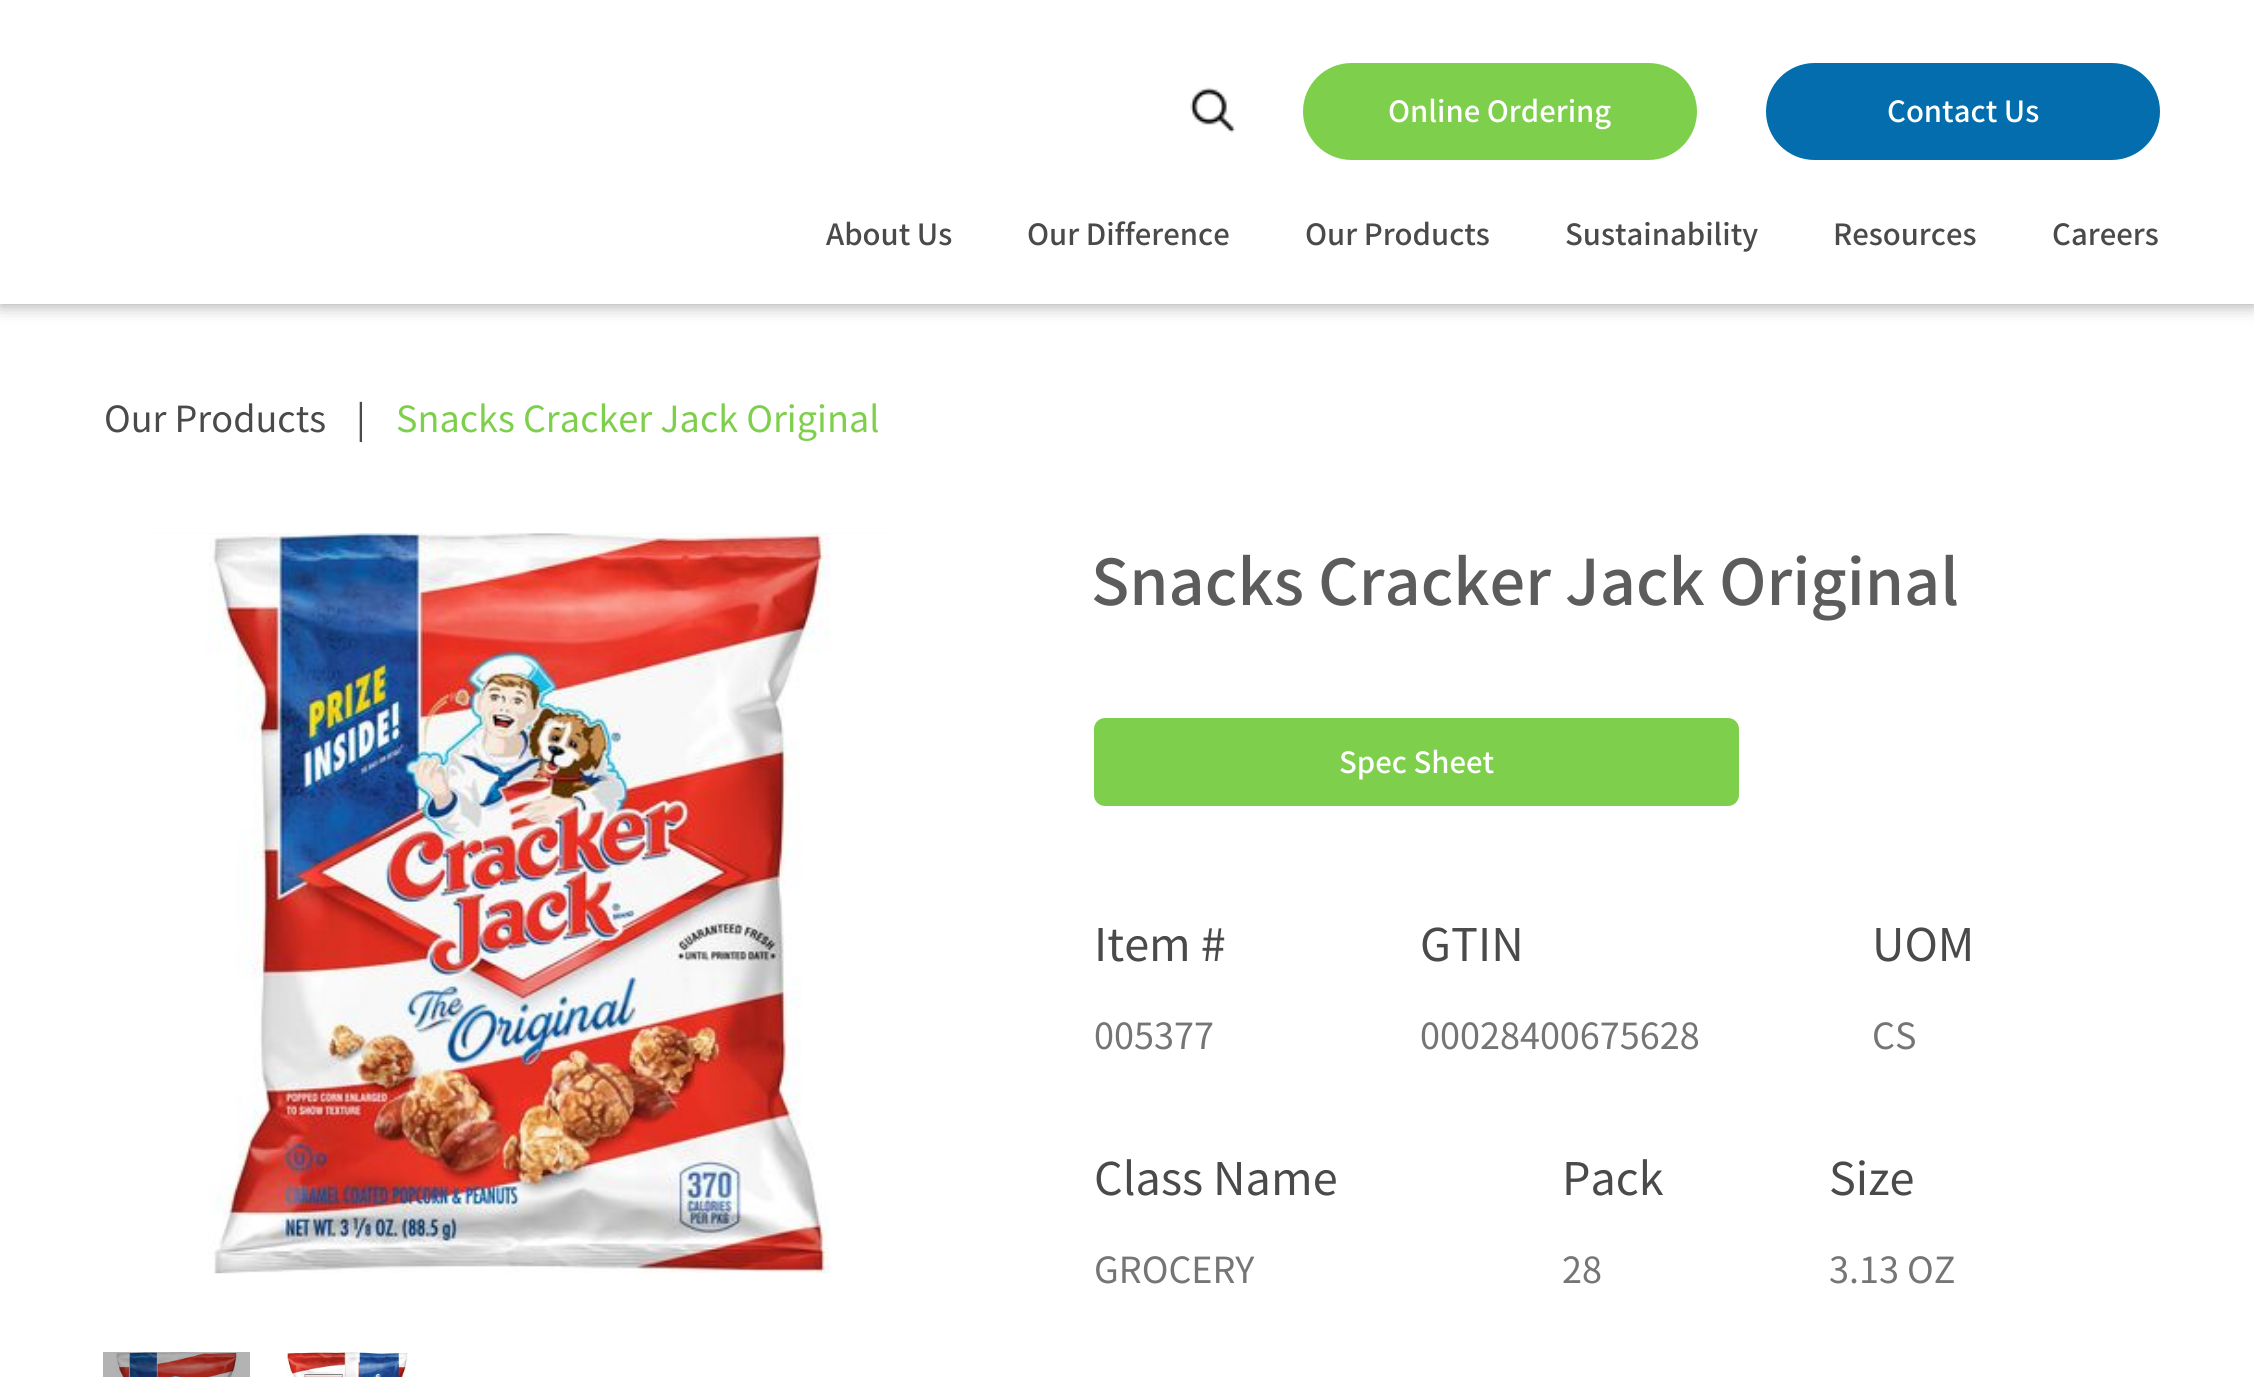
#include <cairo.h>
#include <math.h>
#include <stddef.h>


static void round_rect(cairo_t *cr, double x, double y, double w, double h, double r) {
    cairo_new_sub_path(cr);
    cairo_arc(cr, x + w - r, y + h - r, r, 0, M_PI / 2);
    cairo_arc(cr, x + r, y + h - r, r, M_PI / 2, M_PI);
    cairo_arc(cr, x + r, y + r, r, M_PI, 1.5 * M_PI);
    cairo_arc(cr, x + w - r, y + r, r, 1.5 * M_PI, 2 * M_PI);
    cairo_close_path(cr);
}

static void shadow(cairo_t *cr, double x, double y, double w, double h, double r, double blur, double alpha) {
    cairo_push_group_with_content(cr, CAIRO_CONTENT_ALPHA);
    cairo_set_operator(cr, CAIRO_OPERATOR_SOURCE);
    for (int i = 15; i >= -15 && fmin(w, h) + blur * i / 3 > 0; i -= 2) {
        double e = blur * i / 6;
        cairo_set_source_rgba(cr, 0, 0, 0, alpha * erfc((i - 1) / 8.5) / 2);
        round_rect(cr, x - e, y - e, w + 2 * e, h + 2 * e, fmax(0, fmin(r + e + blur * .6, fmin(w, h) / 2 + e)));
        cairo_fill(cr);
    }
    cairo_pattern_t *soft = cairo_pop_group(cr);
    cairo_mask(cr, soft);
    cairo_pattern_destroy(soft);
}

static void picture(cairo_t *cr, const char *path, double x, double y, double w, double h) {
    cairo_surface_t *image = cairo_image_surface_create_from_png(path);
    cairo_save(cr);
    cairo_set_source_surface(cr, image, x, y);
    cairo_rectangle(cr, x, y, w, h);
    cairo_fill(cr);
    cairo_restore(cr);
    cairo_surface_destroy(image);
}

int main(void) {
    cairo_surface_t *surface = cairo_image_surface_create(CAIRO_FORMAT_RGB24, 2254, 1377);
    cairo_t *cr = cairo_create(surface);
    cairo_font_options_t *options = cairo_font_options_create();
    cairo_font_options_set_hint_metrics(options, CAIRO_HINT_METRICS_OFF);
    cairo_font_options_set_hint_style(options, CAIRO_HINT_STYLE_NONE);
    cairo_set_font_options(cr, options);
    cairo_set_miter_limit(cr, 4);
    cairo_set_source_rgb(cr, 1, 1, 1);
    cairo_paint(cr);
    cairo_set_source_rgb(cr, 0.702, 0.702, 0.702);
    cairo_rectangle(cr, 103, 1352, 147, 25);
    cairo_fill(cr);
    cairo_set_source_rgb(cr, 0, 0, 0);
    shadow(cr, 0, 0, 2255, 304, 0, 9, 0.4);
    cairo_set_source_rgb(cr, 1, 1, 1);
    cairo_rectangle(cr, 0, 0, 2254, 304);
    cairo_fill(cr);
    picture(cr, "img1.png", 1190, 87, 46, 46);
    cairo_set_source_rgb(cr, 0.494, 0.812, 0.294);
    round_rect(cr, 1303, 63, 394, 97, 48.5);
    cairo_fill(cr);
    cairo_select_font_face(cr, "Noto Sans JP Medium", CAIRO_FONT_SLANT_NORMAL, CAIRO_FONT_WEIGHT_NORMAL);
    cairo_set_font_size(cr, 29.25);
    cairo_set_source_rgb(cr, 1, 1, 1);
    cairo_move_to(cr, 1388, 122);
    cairo_show_text(cr, "Online Ordering");
    cairo_set_source_rgb(cr, 0.012, 0.427, 0.678);
    round_rect(cr, 1766, 63, 394, 97, 48.5);
    cairo_fill(cr);
    cairo_set_source_rgb(cr, 1, 1, 1);
    cairo_move_to(cr, 1887, 122);
    cairo_show_text(cr, "Contact Us");
    cairo_set_source_rgb(cr, 0.29, 0.29, 0.29);
    cairo_move_to(cr, 826, 245);
    cairo_show_text(cr, "About Us");
    cairo_move_to(cr, 1027, 245);
    cairo_show_text(cr, "Our Difference");
    cairo_move_to(cr, 1305, 245);
    cairo_show_text(cr, "Our Products");
    cairo_move_to(cr, 1565, 245);
    cairo_show_text(cr, "Sustainability");
    cairo_move_to(cr, 1833, 245);
    cairo_show_text(cr, "Resources");
    cairo_move_to(cr, 2052, 245);
    cairo_show_text(cr, "Careers");
    cairo_select_font_face(cr, "Noto Sans JP", CAIRO_FONT_SLANT_NORMAL, CAIRO_FONT_WEIGHT_NORMAL);
    cairo_set_font_size(cr, 36);
    cairo_move_to(cr, 104, 432);
    cairo_show_text(cr, "Our Products");
    cairo_move_to(cr, 356, 432);
    cairo_show_text(cr, "|");
    cairo_set_source_rgb(cr, 0.494, 0.812, 0.294);
    cairo_move_to(cr, 396, 432);
    cairo_show_text(cr, "Snacks Cracker Jack Original");
    picture(cr, "img2.png", 149, 533, 737, 1);
    picture(cr, "img3.png", 149, 533, 737, 741);
    cairo_select_font_face(cr, "Noto Sans JP Medium", CAIRO_FONT_SLANT_NORMAL, CAIRO_FONT_WEIGHT_NORMAL);
    cairo_set_font_size(cr, 63);
    cairo_set_source_rgb(cr, 0.361, 0.361, 0.361);
    cairo_move_to(cr, 1091, 605);
    cairo_show_text(cr, "Snacks Cracker Jack Original");
    cairo_set_source_rgb(cr, 0.494, 0.812, 0.294);
    round_rect(cr, 1094, 718, 645, 88, 11);
    cairo_fill(cr);
    cairo_set_font_size(cr, 29.25);
    cairo_set_source_rgb(cr, 1, 1, 1);
    cairo_move_to(cr, 1339, 773);
    cairo_show_text(cr, "Spec Sheet");
    cairo_select_font_face(cr, "Noto Sans JP", CAIRO_FONT_SLANT_NORMAL, CAIRO_FONT_WEIGHT_NORMAL);
    cairo_set_font_size(cr, 45);
    cairo_set_source_rgb(cr, 0.29, 0.29, 0.29);
    cairo_move_to(cr, 1094, 961);
    cairo_show_text(cr, "Item #");
    cairo_move_to(cr, 1420, 961);
    cairo_show_text(cr, "GTIN");
    cairo_move_to(cr, 1872, 961);
    cairo_show_text(cr, "UOM");
    cairo_set_font_size(cr, 36);
    cairo_set_source_rgb(cr, 0.459, 0.459, 0.459);
    cairo_move_to(cr, 1094, 1049);
    cairo_show_text(cr, "005377");
    cairo_move_to(cr, 1420, 1049);
    cairo_show_text(cr, "00028400675628");
    cairo_move_to(cr, 1872, 1049);
    cairo_show_text(cr, "CS");
    cairo_set_font_size(cr, 45);
    cairo_set_source_rgb(cr, 0.29, 0.29, 0.29);
    cairo_move_to(cr, 1094, 1195);
    cairo_show_text(cr, "Class Name");
    cairo_move_to(cr, 1562, 1195);
    cairo_show_text(cr, "Pack");
    cairo_move_to(cr, 1829, 1195);
    cairo_show_text(cr, "Size");
    cairo_set_font_size(cr, 36);
    cairo_set_source_rgb(cr, 0.459, 0.459, 0.459);
    cairo_move_to(cr, 1094, 1283);
    cairo_show_text(cr, "GROCERY");
    cairo_move_to(cr, 1562, 1283);
    cairo_show_text(cr, "28");
    cairo_move_to(cr, 1829, 1283);
    cairo_show_text(cr, "3.13 OZ");
    picture(cr, "img4.png", 115, 1352, 123, 25);
    picture(cr, "img5.png", 286, 1352, 122, 25);
    cairo_surface_write_to_png(surface, "page.png");
    cairo_font_options_destroy(options);
    cairo_destroy(cr);
    cairo_surface_destroy(surface);
    return 0;
}
